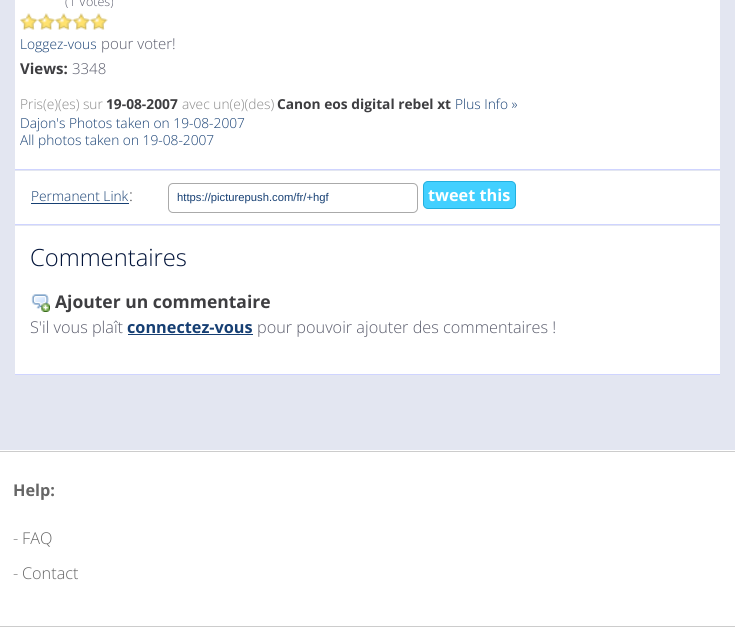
#include <cairo.h>
#include <math.h>
#include <stddef.h>


static void round_rect(cairo_t *cr, double x, double y, double w, double h, double r) {
    cairo_new_sub_path(cr);
    cairo_arc(cr, x + w - r, y + h - r, r, 0, M_PI / 2);
    cairo_arc(cr, x + r, y + h - r, r, M_PI / 2, M_PI);
    cairo_arc(cr, x + r, y + r, r, M_PI, 1.5 * M_PI);
    cairo_arc(cr, x + w - r, y + r, r, 1.5 * M_PI, 2 * M_PI);
    cairo_close_path(cr);
}

static void picture(cairo_t *cr, const char *path, double x, double y, double w, double h) {
    cairo_surface_t *image = cairo_image_surface_create_from_png(path);
    cairo_save(cr);
    cairo_set_source_surface(cr, image, x, y);
    cairo_rectangle(cr, x, y, w, h);
    cairo_fill(cr);
    cairo_restore(cr);
    cairo_surface_destroy(image);
}

int main(void) {
    cairo_surface_t *surface = cairo_image_surface_create(CAIRO_FORMAT_RGB24, 735, 642);
    cairo_t *cr = cairo_create(surface);
    cairo_font_options_t *options = cairo_font_options_create();
    cairo_font_options_set_hint_metrics(options, CAIRO_HINT_METRICS_OFF);
    cairo_font_options_set_hint_style(options, CAIRO_HINT_STYLE_NONE);
    cairo_set_font_options(cr, options);
    cairo_set_miter_limit(cr, 4);
    cairo_set_source_rgb(cr, 0.89, 0.902, 0.945);
    cairo_paint(cr);
    cairo_set_source_rgb(cr, 1, 1, 1);
    cairo_rectangle(cr, 15, 0, 705, 169);
    cairo_fill(cr);
    cairo_set_source_rgb(cr, 0.812, 0.831, 1);
    cairo_rectangle(cr, 15, 169, 705, 1);
    cairo_fill(cr);
    cairo_select_font_face(cr, "Open Sans Light", CAIRO_FONT_SLANT_NORMAL, CAIRO_FONT_WEIGHT_NORMAL);
    cairo_set_font_size(cr, 12.5);
    cairo_set_source_rgb(cr, 0.353, 0.361, 0.424);
    cairo_move_to(cr, 65, 6);
    cairo_show_text(cr, "(1 Votes)");
    picture(cr, "img1.png", 20, 13, 18, 17);
    picture(cr, "img2.png", 37, 13, 18, 17);
    picture(cr, "img3.png", 55, 13, 18, 17);
    picture(cr, "img4.png", 72, 13, 18, 17);
    picture(cr, "img3.png", 90, 13, 18, 17);
    cairo_set_font_size(cr, 13.75);
    cairo_set_source_rgb(cr, 0.086, 0.247, 0.451);
    cairo_move_to(cr, 20, 49);
    cairo_show_text(cr, "Loggez-vous");
    cairo_set_font_size(cr, 15);
    cairo_set_source_rgb(cr, 0.353, 0.361, 0.424);
    cairo_move_to(cr, 101, 49);
    cairo_show_text(cr, "pour voter!");
    cairo_select_font_face(cr, "Open Sans", CAIRO_FONT_SLANT_NORMAL, CAIRO_FONT_WEIGHT_BOLD);
    cairo_set_source_rgb(cr, 0.243, 0.243, 0.255);
    cairo_move_to(cr, 20, 74);
    cairo_show_text(cr, "Views:");
    cairo_select_font_face(cr, "Open Sans Light", CAIRO_FONT_SLANT_NORMAL, CAIRO_FONT_WEIGHT_NORMAL);
    cairo_set_source_rgb(cr, 0.353, 0.361, 0.424);
    cairo_move_to(cr, 72, 74);
    cairo_show_text(cr, "3348");
    cairo_set_font_size(cr, 13.75);
    cairo_set_source_rgb(cr, 0.533, 0.533, 0.533);
    cairo_move_to(cr, 20, 109);
    cairo_show_text(cr, "Pris(e)(es) sur");
    cairo_select_font_face(cr, "Open Sans", CAIRO_FONT_SLANT_NORMAL, CAIRO_FONT_WEIGHT_BOLD);
    cairo_set_source_rgb(cr, 0.243, 0.243, 0.255);
    cairo_move_to(cr, 106, 109);
    cairo_show_text(cr, "19-08-2007");
    cairo_select_font_face(cr, "Open Sans Light", CAIRO_FONT_SLANT_NORMAL, CAIRO_FONT_WEIGHT_NORMAL);
    cairo_set_source_rgb(cr, 0.533, 0.533, 0.533);
    cairo_move_to(cr, 182, 109);
    cairo_show_text(cr, "avec un(e)(des)");
    cairo_select_font_face(cr, "Open Sans", CAIRO_FONT_SLANT_NORMAL, CAIRO_FONT_WEIGHT_BOLD);
    cairo_set_source_rgb(cr, 0.243, 0.243, 0.255);
    cairo_move_to(cr, 277, 109);
    cairo_show_text(cr, "Canon eos digital rebel xt");
    cairo_select_font_face(cr, "Open Sans Light", CAIRO_FONT_SLANT_NORMAL, CAIRO_FONT_WEIGHT_NORMAL);
    cairo_set_source_rgb(cr, 0.086, 0.247, 0.451);
    cairo_move_to(cr, 455, 109);
    cairo_show_text(cr, "Plus Info »");
    cairo_move_to(cr, 20, 128);
    cairo_show_text(cr, "Dajon's Photos taken on 19-08-2007");
    cairo_move_to(cr, 20, 145);
    cairo_show_text(cr, "All photos taken on 19-08-2007");
    cairo_set_source_rgb(cr, 1, 1, 1);
    cairo_rectangle(cr, 15, 171, 705, 53);
    cairo_fill(cr);
    cairo_set_source_rgb(cr, 0.812, 0.831, 1);
    cairo_rectangle(cr, 15, 224, 705, 1);
    cairo_fill(cr);
    cairo_set_source_rgb(cr, 0.086, 0.247, 0.451);
    cairo_move_to(cr, 31, 201);
    cairo_show_text(cr, "Permanent Link");
    cairo_rectangle(cr, 31, 203, 98, 1);
    cairo_fill(cr);
    cairo_set_font_size(cr, 16.25);
    cairo_set_source_rgb(cr, 0.243, 0.243, 0.255);
    cairo_move_to(cr, 129, 201);
    cairo_show_text(cr, ":");
    round_rect(cr, 168.5, 183.5, 249, 29, 4.5);
    cairo_set_source_rgb(cr, 0.667, 0.667, 0.667);
    cairo_set_line_width(cr, 1);
    cairo_stroke(cr);
    cairo_select_font_face(cr, "Liberation Sans", CAIRO_FONT_SLANT_NORMAL, CAIRO_FONT_WEIGHT_NORMAL);
    cairo_set_font_size(cr, 11.25);
    cairo_set_source_rgb(cr, 0.086, 0.247, 0.451);
    cairo_move_to(cr, 177, 201);
    cairo_show_text(cr, "https://picturepush.com/fr/+hgf");
    cairo_set_source_rgb(cr, 0.259, 0.816, 1);
    round_rect(cr, 423.5, 181.5, 92, 27, 4.5);
    cairo_fill_preserve(cr);
    cairo_set_source_rgb(cr, 0.133, 0.69, 0.875);
    cairo_stroke(cr);
    cairo_select_font_face(cr, "Open Sans", CAIRO_FONT_SLANT_NORMAL, CAIRO_FONT_WEIGHT_BOLD);
    cairo_set_font_size(cr, 16.25);
    cairo_set_source_rgb(cr, 1, 1, 1);
    cairo_move_to(cr, 428, 201);
    cairo_show_text(cr, "tweet this");
    cairo_rectangle(cr, 15, 226, 705, 148);
    cairo_fill(cr);
    cairo_set_source_rgb(cr, 0.812, 0.831, 1);
    cairo_rectangle(cr, 15, 374, 705, 1);
    cairo_fill(cr);
    cairo_select_font_face(cr, "Open Sans Light", CAIRO_FONT_SLANT_NORMAL, CAIRO_FONT_WEIGHT_NORMAL);
    cairo_set_font_size(cr, 23.75);
    cairo_set_source_rgb(cr, 0.004, 0.075, 0.224);
    cairo_move_to(cr, 30, 266);
    cairo_show_text(cr, "Commentaires");
    picture(cr, "img5.png", 31, 294, 19, 18);
    cairo_select_font_face(cr, "Open Sans", CAIRO_FONT_SLANT_NORMAL, CAIRO_FONT_WEIGHT_BOLD);
    cairo_set_font_size(cr, 17.5);
    cairo_set_source_rgb(cr, 0.243, 0.243, 0.255);
    cairo_move_to(cr, 55, 308);
    cairo_show_text(cr, "Ajouter un commentaire");
    cairo_select_font_face(cr, "Open Sans Light", CAIRO_FONT_SLANT_NORMAL, CAIRO_FONT_WEIGHT_NORMAL);
    cairo_set_font_size(cr, 16.25);
    cairo_set_source_rgb(cr, 0.353, 0.361, 0.424);
    cairo_move_to(cr, 30, 333);
    cairo_show_text(cr, "S'il vous plaît");
    cairo_select_font_face(cr, "Open Sans", CAIRO_FONT_SLANT_NORMAL, CAIRO_FONT_WEIGHT_BOLD);
    cairo_set_source_rgb(cr, 0.086, 0.247, 0.451);
    cairo_move_to(cr, 127, 333);
    cairo_show_text(cr, "connectez-vous");
    cairo_rectangle(cr, 128, 334, 125, 1);
    cairo_fill(cr);
    cairo_select_font_face(cr, "Open Sans Light", CAIRO_FONT_SLANT_NORMAL, CAIRO_FONT_WEIGHT_NORMAL);
    cairo_set_source_rgb(cr, 0.353, 0.361, 0.424);
    cairo_move_to(cr, 257, 333);
    cairo_show_text(cr, "pour pouvoir ajouter des commentaires !");
    cairo_set_source_rgb(cr, 1, 1, 1);
    cairo_rectangle(cr, 0, 450, 735, 192);
    cairo_fill(cr);
    cairo_set_source_rgb(cr, 0.8, 0.8, 0.8);
    cairo_rectangle(cr, 0, 451, 735, 1);
    cairo_fill(cr);
    cairo_select_font_face(cr, "Open Sans", CAIRO_FONT_SLANT_NORMAL, CAIRO_FONT_WEIGHT_BOLD);
    cairo_set_source_rgb(cr, 0.4, 0.4, 0.4);
    cairo_move_to(cr, 13, 496);
    cairo_show_text(cr, "Help:");
    cairo_select_font_face(cr, "Open Sans Light", CAIRO_FONT_SLANT_NORMAL, CAIRO_FONT_WEIGHT_NORMAL);
    cairo_set_source_rgb(cr, 0.533, 0.533, 0.533);
    cairo_move_to(cr, 13, 544);
    cairo_show_text(cr, "-");
    cairo_set_source_rgb(cr, 0.4, 0.4, 0.4);
    cairo_move_to(cr, 22, 544);
    cairo_show_text(cr, "FAQ");
    cairo_set_source_rgb(cr, 0.533, 0.533, 0.533);
    cairo_move_to(cr, 13, 579);
    cairo_show_text(cr, "-");
    cairo_set_source_rgb(cr, 0.4, 0.4, 0.4);
    cairo_move_to(cr, 22, 579);
    cairo_show_text(cr, "Contact");
    cairo_set_source_rgb(cr, 0.8, 0.8, 0.8);
    cairo_rectangle(cr, 0, 626, 735, 1);
    cairo_fill(cr);
    cairo_surface_write_to_png(surface, "page.png");
    cairo_font_options_destroy(options);
    cairo_destroy(cr);
    cairo_surface_destroy(surface);
    return 0;
}
